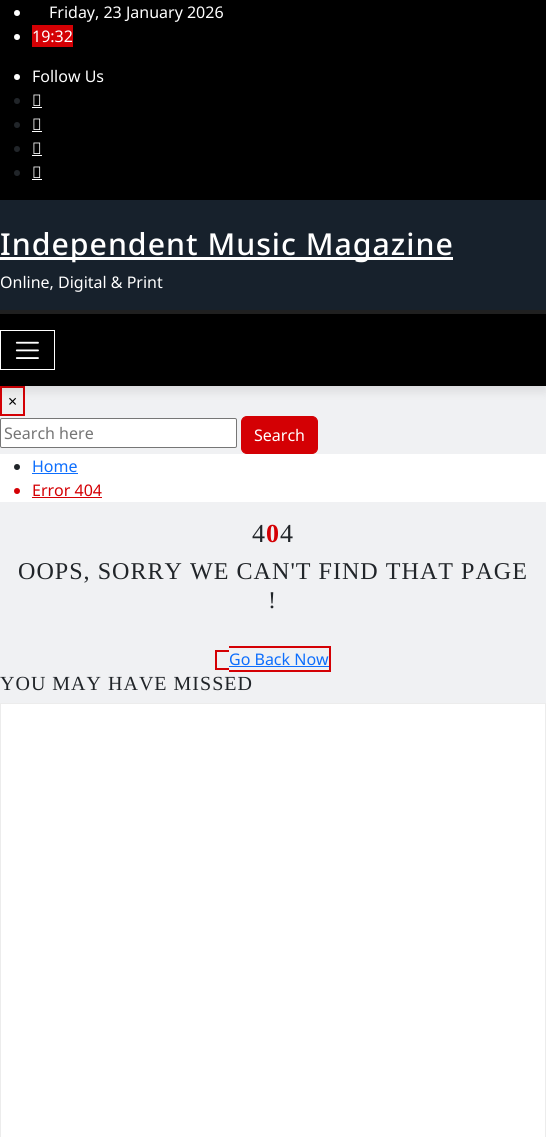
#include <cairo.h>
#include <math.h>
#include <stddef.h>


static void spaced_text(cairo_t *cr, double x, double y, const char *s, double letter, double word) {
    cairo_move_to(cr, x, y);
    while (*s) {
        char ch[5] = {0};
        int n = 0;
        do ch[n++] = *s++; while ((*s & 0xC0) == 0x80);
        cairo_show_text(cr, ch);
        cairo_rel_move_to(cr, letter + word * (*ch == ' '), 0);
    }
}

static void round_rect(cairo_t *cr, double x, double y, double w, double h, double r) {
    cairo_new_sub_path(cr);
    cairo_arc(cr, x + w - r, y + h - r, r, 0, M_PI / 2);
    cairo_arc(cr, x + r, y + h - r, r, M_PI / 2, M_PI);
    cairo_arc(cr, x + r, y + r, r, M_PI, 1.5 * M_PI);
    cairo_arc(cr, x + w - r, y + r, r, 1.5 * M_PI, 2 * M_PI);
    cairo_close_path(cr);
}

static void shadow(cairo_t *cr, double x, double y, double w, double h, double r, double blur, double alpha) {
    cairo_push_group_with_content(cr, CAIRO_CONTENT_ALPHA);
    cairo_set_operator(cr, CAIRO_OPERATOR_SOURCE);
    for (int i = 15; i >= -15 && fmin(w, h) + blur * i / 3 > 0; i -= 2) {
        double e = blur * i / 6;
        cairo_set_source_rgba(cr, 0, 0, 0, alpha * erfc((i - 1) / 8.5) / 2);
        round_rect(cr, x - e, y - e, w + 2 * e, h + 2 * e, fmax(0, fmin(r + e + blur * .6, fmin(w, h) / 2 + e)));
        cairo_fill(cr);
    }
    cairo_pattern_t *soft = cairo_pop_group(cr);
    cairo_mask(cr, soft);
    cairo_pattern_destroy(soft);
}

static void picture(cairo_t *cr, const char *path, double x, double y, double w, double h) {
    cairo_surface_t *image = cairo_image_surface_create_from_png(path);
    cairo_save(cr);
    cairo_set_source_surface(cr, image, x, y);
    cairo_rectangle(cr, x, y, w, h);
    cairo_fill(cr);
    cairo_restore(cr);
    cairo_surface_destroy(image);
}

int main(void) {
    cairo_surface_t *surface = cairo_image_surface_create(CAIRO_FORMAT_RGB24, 546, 1137);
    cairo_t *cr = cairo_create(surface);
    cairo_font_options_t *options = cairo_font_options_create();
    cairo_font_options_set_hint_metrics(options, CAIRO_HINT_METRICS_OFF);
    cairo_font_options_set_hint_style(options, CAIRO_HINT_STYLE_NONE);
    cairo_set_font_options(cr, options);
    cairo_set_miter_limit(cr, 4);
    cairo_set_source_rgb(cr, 0.941, 0.945, 0.953);
    cairo_paint(cr);
    cairo_set_source_rgb(cr, 0, 0, 0);
    cairo_rectangle(cr, 0, 0, 546, 200);
    cairo_fill(cr);
    cairo_set_source_rgb(cr, 1, 1, 1);
    cairo_arc(cr, 17, 13, 3, 0, 2 * M_PI);
    cairo_fill(cr);
    cairo_select_font_face(cr, "Noto Sans", CAIRO_FONT_SLANT_NORMAL, CAIRO_FONT_WEIGHT_NORMAL);
    cairo_set_font_size(cr, 16);
    cairo_move_to(cr, 49, 18);
    cairo_show_text(cr, "Friday, 23 January 2026");
    cairo_new_path(cr);
    cairo_arc(cr, 17, 37, 3, 0, 2 * M_PI);
    cairo_fill(cr);
    cairo_set_source_rgb(cr, 0.831, 0, 0.016);
    cairo_rectangle(cr, 32, 25, 41, 22);
    cairo_fill(cr);
    cairo_set_source_rgb(cr, 1, 1, 1);
    cairo_move_to(cr, 32, 42);
    cairo_show_text(cr, "19:32");
    cairo_new_path(cr);
    cairo_arc(cr, 17, 77, 3, 0, 2 * M_PI);
    cairo_fill(cr);
    cairo_move_to(cr, 32, 82);
    cairo_show_text(cr, "Follow Us");
    cairo_set_source_rgb(cr, 0.129, 0.145, 0.161);
    cairo_new_path(cr);
    cairo_arc(cr, 17, 101, 3, 0, 2 * M_PI);
    cairo_fill(cr);
    picture(cr, "img1.png", 33, 94, 8, 12);
    cairo_set_source_rgb(cr, 1, 1, 1);
    cairo_rectangle(cr, 32, 107, 10, 1);
    cairo_fill(cr);
    cairo_set_source_rgb(cr, 0.129, 0.145, 0.161);
    cairo_arc(cr, 17, 125, 3, 0, 2 * M_PI);
    cairo_fill(cr);
    picture(cr, "img1.png", 33, 118, 8, 12);
    cairo_set_source_rgb(cr, 1, 1, 1);
    cairo_rectangle(cr, 32, 131, 10, 1);
    cairo_fill(cr);
    cairo_set_source_rgb(cr, 0.129, 0.145, 0.161);
    cairo_arc(cr, 17, 149, 3, 0, 2 * M_PI);
    cairo_fill(cr);
    picture(cr, "img1.png", 33, 142, 8, 12);
    cairo_set_source_rgb(cr, 1, 1, 1);
    cairo_rectangle(cr, 32, 155, 10, 1);
    cairo_fill(cr);
    cairo_set_source_rgb(cr, 0.129, 0.145, 0.161);
    cairo_arc(cr, 17, 173, 3, 0, 2 * M_PI);
    cairo_fill(cr);
    picture(cr, "img1.png", 33, 166, 8, 12);
    cairo_set_source_rgb(cr, 1, 1, 1);
    cairo_rectangle(cr, 32, 179, 10, 1);
    cairo_fill(cr);
    cairo_set_source_rgb(cr, 0.09, 0.129, 0.173);
    cairo_rectangle(cr, 0, 200, 546, 110);
    cairo_fill(cr);
    cairo_set_source_rgb(cr, 1, 1, 1);
    cairo_rectangle(cr, 0, 257, 453, 3);
    cairo_fill(cr);
    cairo_select_font_face(cr, "Noto Sans Medium", CAIRO_FONT_SLANT_NORMAL, CAIRO_FONT_WEIGHT_NORMAL);
    cairo_set_font_size(cr, 30.25);
    spaced_text(cr, 0, 255, "Independent Music Magazine", 1, 0);
    cairo_select_font_face(cr, "Noto Sans", CAIRO_FONT_SLANT_NORMAL, CAIRO_FONT_WEIGHT_NORMAL);
    cairo_set_font_size(cr, 16);
    cairo_move_to(cr, 0, 288);
    cairo_show_text(cr, "Online, Digital & Print");
    cairo_set_source_rgb(cr, 0.937, 0.937, 0.937);
    cairo_rectangle(cr, 1, 387, 23, 28);
    cairo_fill_preserve(cr);
    cairo_set_source_rgb(cr, 0.831, 0, 0.016);
    cairo_stroke(cr);
    cairo_set_source_rgb(cr, 0, 0, 0);
    shadow(cr, 0, 315, 546, 76, 0, 5, 0.1);
    cairo_set_source_rgb(cr, 0, 0, 0);
    cairo_rectangle(cr, 0, 314, 546, 72);
    cairo_fill(cr);
    cairo_set_source_rgb(cr, 0.125, 0.125, 0.125);
    cairo_rectangle(cr, 0, 310, 546, 4);
    cairo_fill(cr);
    cairo_rectangle(cr, 0.5, 330.5, 54, 39);
    cairo_set_source_rgb(cr, 1, 1, 1);
    cairo_set_line_width(cr, 1);
    cairo_stroke(cr);
    picture(cr, "img2.png", 15, 341, 24, 18);
    cairo_set_source_rgb(cr, 0, 0, 0);
    cairo_move_to(cr, 8, 407);
    cairo_show_text(cr, "×");
    cairo_set_source_rgb(cr, 1, 1, 1);
    round_rect(cr, 0.5, 418.5, 236, 29, 1.5);
    cairo_fill_preserve(cr);
    cairo_set_source_rgb(cr, 0.463, 0.463, 0.463);
    cairo_stroke(cr);
    cairo_set_source_rgb(cr, 0.459, 0.459, 0.459);
    cairo_move_to(cr, 4, 439);
    cairo_show_text(cr, "Search here");
    cairo_set_source_rgb(cr, 0.831, 0, 0.016);
    round_rect(cr, 241.5, 416.5, 76, 37, 5.5);
    cairo_fill_preserve(cr);
    cairo_stroke(cr);
    cairo_set_source_rgb(cr, 1, 1, 1);
    cairo_move_to(cr, 254, 441);
    cairo_show_text(cr, "Search");
    cairo_rectangle(cr, 0, 454, 546, 48);
    cairo_fill(cr);
    cairo_set_source_rgb(cr, 0.129, 0.145, 0.161);
    cairo_arc(cr, 17, 467, 3, 0, 2 * M_PI);
    cairo_fill(cr);
    cairo_set_source_rgb(cr, 0.051, 0.431, 0.992);
    cairo_move_to(cr, 32, 472);
    cairo_show_text(cr, "Home");
    cairo_rectangle(cr, 32, 473, 46, 1);
    cairo_fill(cr);
    cairo_set_source_rgb(cr, 0.831, 0, 0.016);
    cairo_arc(cr, 17, 491, 3, 0, 2 * M_PI);
    cairo_fill(cr);
    cairo_move_to(cr, 32, 496);
    cairo_show_text(cr, "Error 404");
    cairo_rectangle(cr, 32, 497, 70, 1);
    cairo_fill(cr);
    cairo_select_font_face(cr, "Liberation Serif", CAIRO_FONT_SLANT_NORMAL, CAIRO_FONT_WEIGHT_NORMAL);
    cairo_set_font_size(cr, 26);
    cairo_set_source_rgb(cr, 0.129, 0.145, 0.161);
    spaced_text(cr, 252, 542, "4", 1, 0);
    cairo_select_font_face(cr, "Liberation Serif", CAIRO_FONT_SLANT_NORMAL, CAIRO_FONT_WEIGHT_BOLD);
    cairo_set_source_rgb(cr, 0.831, 0, 0.016);
    spaced_text(cr, 266, 542, "0", 1, 0);
    cairo_select_font_face(cr, "Liberation Serif", CAIRO_FONT_SLANT_NORMAL, CAIRO_FONT_WEIGHT_NORMAL);
    cairo_set_source_rgb(cr, 0.129, 0.145, 0.161);
    spaced_text(cr, 280, 542, "4", 1, 0);
    cairo_set_font_size(cr, 24.1);
    spaced_text(cr, 18, 579, "OOPS, SORRY WE CAN'T FIND THAT PAGE", 1, 0);
    spaced_text(cr, 268, 608, "!", 1, 0);
    cairo_select_font_face(cr, "Noto Sans", CAIRO_FONT_SLANT_NORMAL, CAIRO_FONT_WEIGHT_NORMAL);
    cairo_set_font_size(cr, 16);
    cairo_set_source_rgb(cr, 0.051, 0.431, 0.992);
    cairo_move_to(cr, 229, 665);
    cairo_show_text(cr, "Go Back Now");
    cairo_set_source_rgb(cr, 0.831, 0, 0.016);
    cairo_rectangle(cr, 215, 650, 14, 2);
    cairo_fill(cr);
    cairo_rectangle(cr, 215, 668, 14, 2);
    cairo_fill(cr);
    cairo_rectangle(cr, 215, 650, 2, 20);
    cairo_fill(cr);
    cairo_rectangle(cr, 229, 646, 102, 2);
    cairo_fill(cr);
    cairo_rectangle(cr, 329, 646, 2, 26);
    cairo_fill(cr);
    cairo_rectangle(cr, 229, 670, 102, 2);
    cairo_fill(cr);
    cairo_set_source_rgb(cr, 0.051, 0.431, 0.992);
    cairo_rectangle(cr, 229, 666, 100, 1);
    cairo_fill(cr);
    cairo_select_font_face(cr, "Liberation Serif", CAIRO_FONT_SLANT_NORMAL, CAIRO_FONT_WEIGHT_NORMAL);
    cairo_set_font_size(cr, 20);
    cairo_set_source_rgb(cr, 0.129, 0.145, 0.161);
    spaced_text(cr, 0, 690, "YOU MAY HAVE MISSED", 1, 0);
    cairo_set_source_rgb(cr, 1, 1, 1);
    cairo_rectangle(cr, 0.5, 703.5, 545, 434);
    cairo_fill_preserve(cr);
    cairo_set_source_rgb(cr, 0.922, 0.922, 0.922);
    cairo_stroke(cr);
    cairo_surface_write_to_png(surface, "page.png");
    cairo_font_options_destroy(options);
    cairo_destroy(cr);
    cairo_surface_destroy(surface);
    return 0;
}
